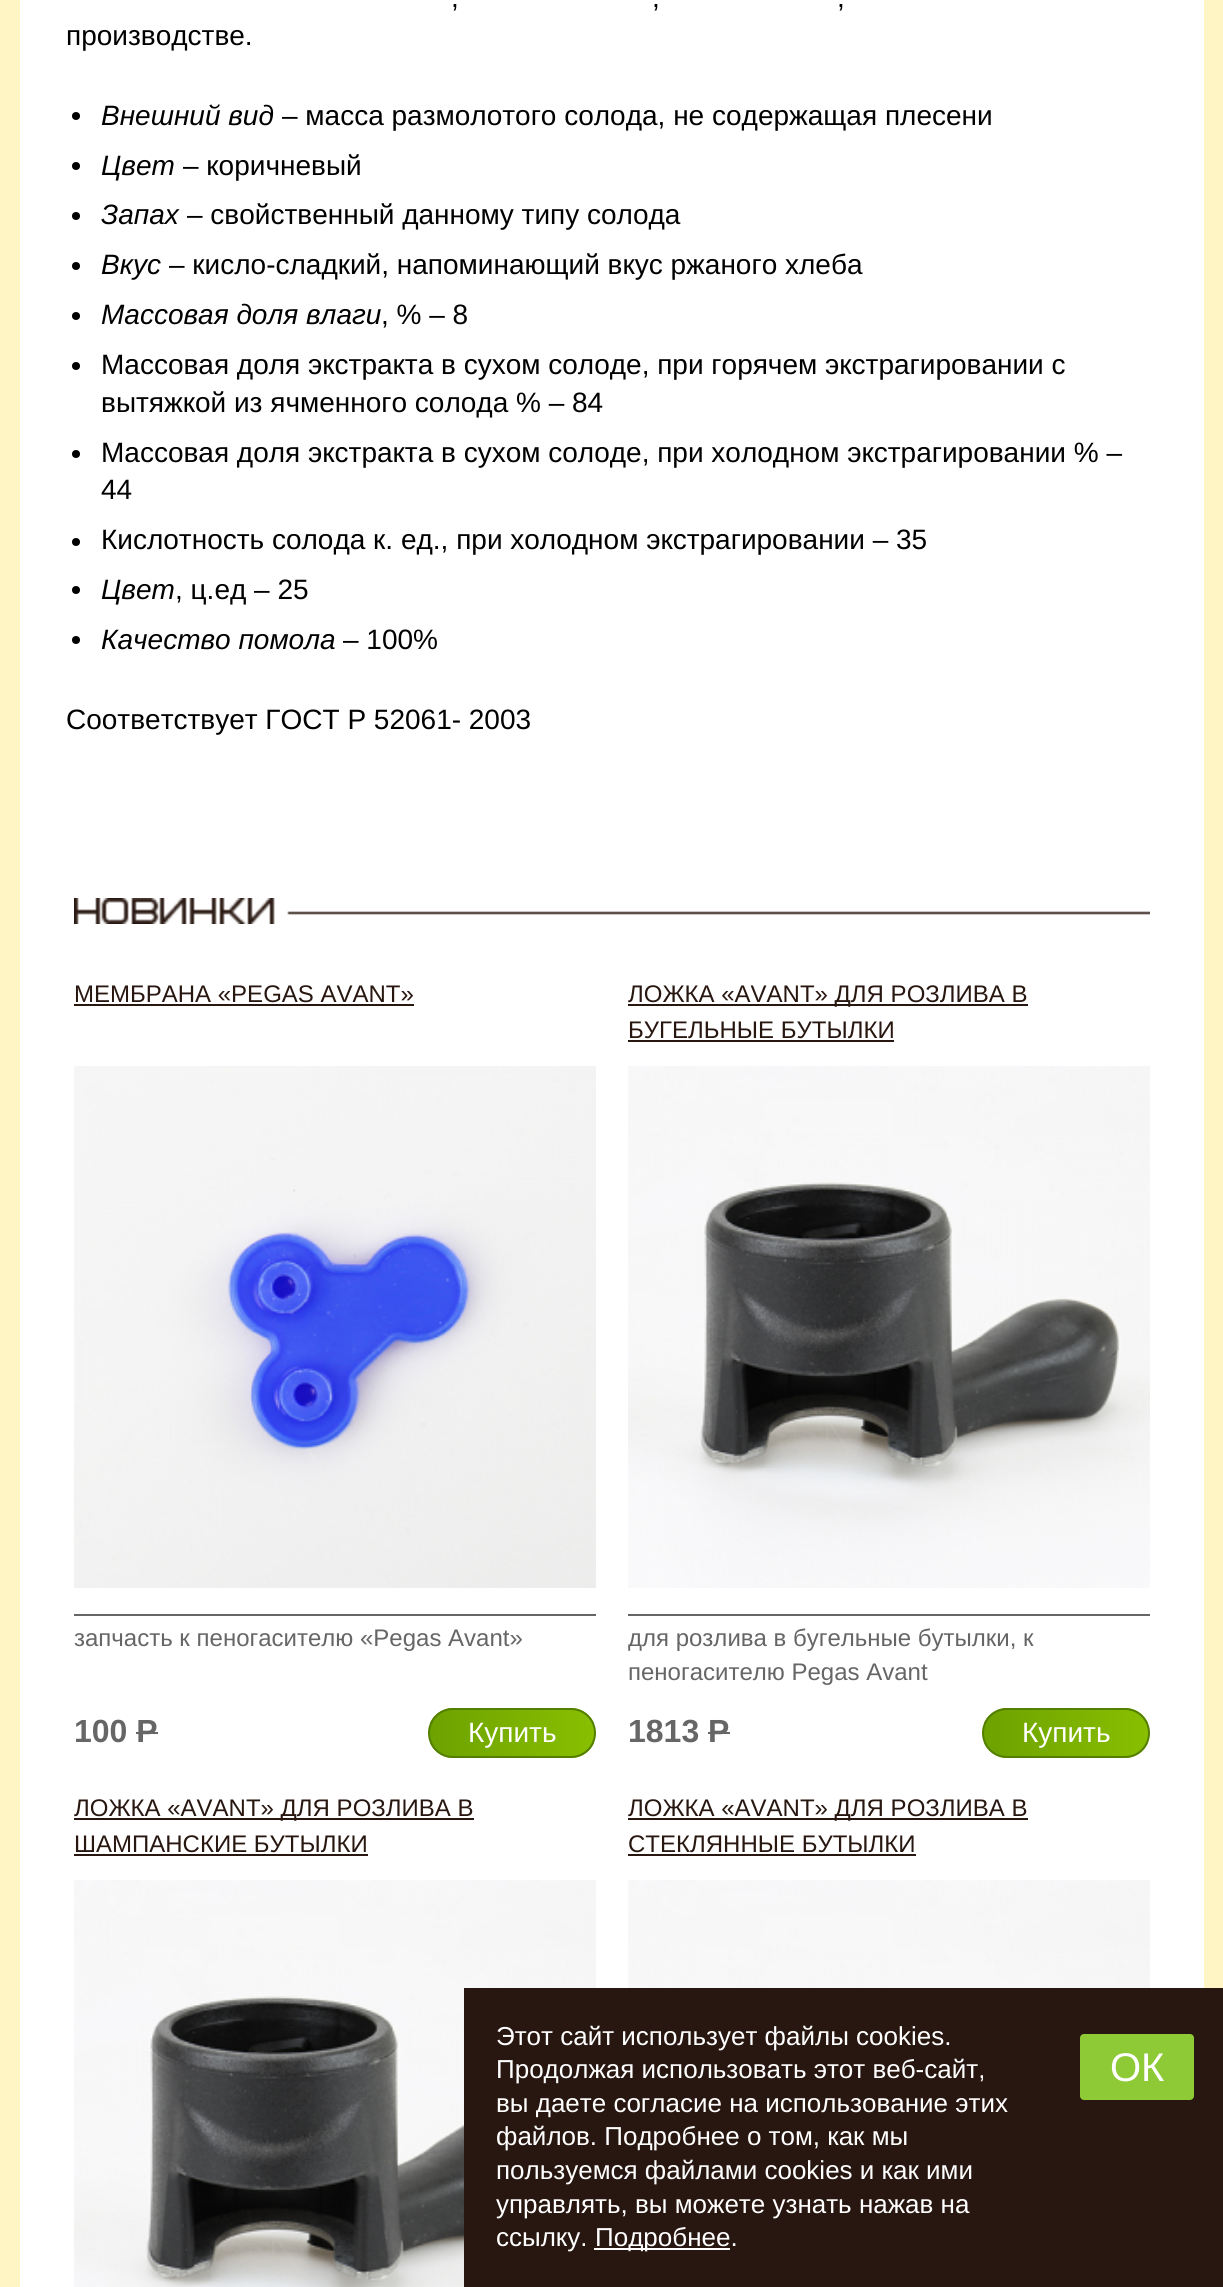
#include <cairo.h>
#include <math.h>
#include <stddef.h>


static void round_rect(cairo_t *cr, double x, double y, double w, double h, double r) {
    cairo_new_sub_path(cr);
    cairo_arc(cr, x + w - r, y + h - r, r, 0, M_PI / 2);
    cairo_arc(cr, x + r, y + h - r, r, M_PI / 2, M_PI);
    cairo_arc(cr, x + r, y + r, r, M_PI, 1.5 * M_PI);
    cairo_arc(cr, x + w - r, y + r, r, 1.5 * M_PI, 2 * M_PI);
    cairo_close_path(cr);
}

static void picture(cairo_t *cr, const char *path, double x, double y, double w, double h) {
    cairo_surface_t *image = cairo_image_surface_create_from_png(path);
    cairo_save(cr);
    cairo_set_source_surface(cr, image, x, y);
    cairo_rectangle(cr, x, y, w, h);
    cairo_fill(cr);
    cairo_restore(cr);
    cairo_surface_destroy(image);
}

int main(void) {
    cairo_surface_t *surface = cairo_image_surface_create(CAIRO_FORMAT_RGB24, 1223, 2287);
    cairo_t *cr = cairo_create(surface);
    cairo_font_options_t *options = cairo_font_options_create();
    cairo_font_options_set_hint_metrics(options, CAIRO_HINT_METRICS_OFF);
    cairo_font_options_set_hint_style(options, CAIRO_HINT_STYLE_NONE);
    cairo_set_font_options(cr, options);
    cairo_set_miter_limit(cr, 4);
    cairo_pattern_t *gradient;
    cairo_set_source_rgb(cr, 1, 0.957, 0.769);
    cairo_paint(cr);
    cairo_set_source_rgb(cr, 1, 1, 1);
    cairo_rectangle(cr, 20, 0, 1184, 2287);
    cairo_fill(cr);
    cairo_select_font_face(cr, "Liberation Sans", CAIRO_FONT_SLANT_NORMAL, CAIRO_FONT_WEIGHT_NORMAL);
    cairo_set_font_size(cr, 28);
    cairo_set_source_rgb(cr, 0, 0, 0);
    cairo_move_to(cr, 451, 7);
    cairo_show_text(cr, ",");
    cairo_move_to(cr, 652, 7);
    cairo_show_text(cr, ",");
    cairo_move_to(cr, 837, 7);
    cairo_show_text(cr, ",");
    cairo_move_to(cr, 66, 45);
    cairo_show_text(cr, "производстве.");
    cairo_new_path(cr);
    cairo_arc(cr, 76, 116, 4, 0, 2 * M_PI);
    cairo_fill(cr);
    cairo_select_font_face(cr, "Liberation Sans", CAIRO_FONT_SLANT_ITALIC, CAIRO_FONT_WEIGHT_NORMAL);
    cairo_move_to(cr, 101, 125);
    cairo_show_text(cr, "Внешний вид");
    cairo_select_font_face(cr, "Liberation Sans", CAIRO_FONT_SLANT_NORMAL, CAIRO_FONT_WEIGHT_NORMAL);
    cairo_move_to(cr, 282, 125);
    cairo_show_text(cr, "– масса размолотого солода, не содержащая плесени");
    cairo_new_path(cr);
    cairo_arc(cr, 76, 166, 4, 0, 2 * M_PI);
    cairo_fill(cr);
    cairo_select_font_face(cr, "Liberation Sans", CAIRO_FONT_SLANT_ITALIC, CAIRO_FONT_WEIGHT_NORMAL);
    cairo_move_to(cr, 101, 175);
    cairo_show_text(cr, "Цвет");
    cairo_select_font_face(cr, "Liberation Sans", CAIRO_FONT_SLANT_NORMAL, CAIRO_FONT_WEIGHT_NORMAL);
    cairo_move_to(cr, 183, 175);
    cairo_show_text(cr, "– коричневый");
    cairo_new_path(cr);
    cairo_arc(cr, 76, 216, 4, 0, 2 * M_PI);
    cairo_fill(cr);
    cairo_select_font_face(cr, "Liberation Sans", CAIRO_FONT_SLANT_ITALIC, CAIRO_FONT_WEIGHT_NORMAL);
    cairo_move_to(cr, 101, 224);
    cairo_show_text(cr, "Запах");
    cairo_select_font_face(cr, "Liberation Sans", CAIRO_FONT_SLANT_NORMAL, CAIRO_FONT_WEIGHT_NORMAL);
    cairo_move_to(cr, 187, 224);
    cairo_show_text(cr, "– свойственный данному типу солода");
    cairo_new_path(cr);
    cairo_arc(cr, 76, 266, 4, 0, 2 * M_PI);
    cairo_fill(cr);
    cairo_select_font_face(cr, "Liberation Sans", CAIRO_FONT_SLANT_ITALIC, CAIRO_FONT_WEIGHT_NORMAL);
    cairo_move_to(cr, 101, 274);
    cairo_show_text(cr, "Вкус");
    cairo_select_font_face(cr, "Liberation Sans", CAIRO_FONT_SLANT_NORMAL, CAIRO_FONT_WEIGHT_NORMAL);
    cairo_move_to(cr, 169, 274);
    cairo_show_text(cr, "– кисло-сладкий, напоминающий вкус ржаного хлеба");
    cairo_new_path(cr);
    cairo_arc(cr, 76, 316, 4, 0, 2 * M_PI);
    cairo_fill(cr);
    cairo_select_font_face(cr, "Liberation Sans", CAIRO_FONT_SLANT_ITALIC, CAIRO_FONT_WEIGHT_NORMAL);
    cairo_move_to(cr, 101, 324);
    cairo_show_text(cr, "Массовая доля влаги");
    cairo_select_font_face(cr, "Liberation Sans", CAIRO_FONT_SLANT_NORMAL, CAIRO_FONT_WEIGHT_NORMAL);
    cairo_move_to(cr, 381, 324);
    cairo_show_text(cr, ", % – 8");
    cairo_new_path(cr);
    cairo_arc(cr, 76, 366, 4, 0, 2 * M_PI);
    cairo_fill(cr);
    cairo_move_to(cr, 101, 374);
    cairo_show_text(cr, "Массовая доля экстракта в сухом солоде, при горячем экстрагировании с");
    cairo_move_to(cr, 101, 412);
    cairo_show_text(cr, "вытяжкой из ячменного солода % – 84");
    cairo_new_path(cr);
    cairo_arc(cr, 76, 454, 4, 0, 2 * M_PI);
    cairo_fill(cr);
    cairo_move_to(cr, 101, 462);
    cairo_show_text(cr, "Массовая доля экстракта в сухом солоде, при холодном экстрагировании % –");
    cairo_move_to(cr, 101, 499);
    cairo_show_text(cr, "44");
    cairo_new_path(cr);
    cairo_arc(cr, 76, 542, 4, 0, 2 * M_PI);
    cairo_fill(cr);
    cairo_move_to(cr, 101, 549);
    cairo_show_text(cr, "Кислотность солода к. ед., при холодном экстрагировании – 35");
    cairo_new_path(cr);
    cairo_arc(cr, 76, 590, 4, 0, 2 * M_PI);
    cairo_fill(cr);
    cairo_select_font_face(cr, "Liberation Sans", CAIRO_FONT_SLANT_ITALIC, CAIRO_FONT_WEIGHT_NORMAL);
    cairo_move_to(cr, 101, 599);
    cairo_show_text(cr, "Цвет");
    cairo_select_font_face(cr, "Liberation Sans", CAIRO_FONT_SLANT_NORMAL, CAIRO_FONT_WEIGHT_NORMAL);
    cairo_move_to(cr, 175, 599);
    cairo_show_text(cr, ", ц.ед – 25");
    cairo_new_path(cr);
    cairo_arc(cr, 76, 640, 4, 0, 2 * M_PI);
    cairo_fill(cr);
    cairo_select_font_face(cr, "Liberation Sans", CAIRO_FONT_SLANT_ITALIC, CAIRO_FONT_WEIGHT_NORMAL);
    cairo_move_to(cr, 101, 649);
    cairo_show_text(cr, "Качество помола");
    cairo_select_font_face(cr, "Liberation Sans", CAIRO_FONT_SLANT_NORMAL, CAIRO_FONT_WEIGHT_NORMAL);
    cairo_move_to(cr, 343, 649);
    cairo_show_text(cr, "– 100%");
    cairo_move_to(cr, 66, 729);
    cairo_show_text(cr, "Соответствует ГОСТ Р 52061- 2003");
    picture(cr, "img1.png", 74, 898, 1076, 26);
    cairo_set_font_size(cr, 24);
    cairo_set_source_rgb(cr, 0.157, 0.09, 0.063);
    cairo_move_to(cr, 74, 1002);
    cairo_show_text(cr, "МЕМБРАНА «PEGAS AVANT»");
    cairo_rectangle(cr, 74, 1004, 340, 2);
    cairo_fill(cr);
    cairo_set_source_rgb(cr, 0.4, 0.4, 0.4);
    cairo_rectangle(cr, 74, 1614, 522, 2);
    cairo_fill(cr);
    picture(cr, "img2.png", 74, 1066, 522, 522);
    cairo_move_to(cr, 74, 1646);
    cairo_show_text(cr, "запчасть к пеногасителю «Pegas Avant»");
    cairo_select_font_face(cr, "Liberation Sans", CAIRO_FONT_SLANT_NORMAL, CAIRO_FONT_WEIGHT_BOLD);
    cairo_set_font_size(cr, 32);
    cairo_move_to(cr, 74, 1742);
    cairo_show_text(cr, "100 Р");
    cairo_save(cr);
    round_rect(cr, 428, 1708, 168, 50, 25);
    cairo_clip(cr);
    gradient = cairo_pattern_create_linear(430, 1733, 594, 1733);
    cairo_pattern_add_color_stop_rgba(gradient, 0, 0.427, 0.635, 0, 1);
    cairo_pattern_add_color_stop_rgba(gradient, 1, 0.537, 0.749, 0, 1);
    cairo_set_source(cr, gradient);
    cairo_pattern_destroy(gradient);
    cairo_rectangle(cr, 430, 1708, 164, 50);
    cairo_fill(cr);
    cairo_restore(cr);
    round_rect(cr, 429, 1709, 166, 48, 24);
    cairo_set_source_rgb(cr, 0.333, 0.498, 0);
    cairo_stroke(cr);
    cairo_select_font_face(cr, "Liberation Sans", CAIRO_FONT_SLANT_NORMAL, CAIRO_FONT_WEIGHT_NORMAL);
    cairo_set_font_size(cr, 28);
    cairo_set_source_rgb(cr, 1, 1, 1);
    cairo_move_to(cr, 468, 1742);
    cairo_show_text(cr, "Купить");
    cairo_set_source_rgb(cr, 0.4, 0.4, 0.4);
    cairo_rectangle(cr, 136, 1732, 22, 2);
    cairo_fill(cr);
    cairo_set_source_rgb(cr, 0.157, 0.09, 0.063);
    cairo_rectangle(cr, 628, 1004, 400, 2);
    cairo_fill(cr);
    cairo_set_font_size(cr, 24);
    cairo_move_to(cr, 628, 1002);
    cairo_show_text(cr, "ЛОЖКА «AVANT» ДЛЯ РОЗЛИВА В");
    cairo_move_to(cr, 628, 1038);
    cairo_show_text(cr, "БУГЕЛЬНЫЕ БУТЫЛКИ");
    cairo_rectangle(cr, 628, 1040, 266, 2);
    cairo_fill(cr);
    cairo_set_source_rgb(cr, 0.4, 0.4, 0.4);
    cairo_rectangle(cr, 628, 1614, 522, 2);
    cairo_fill(cr);
    picture(cr, "img3.png", 628, 1066, 522, 522);
    cairo_move_to(cr, 628, 1646);
    cairo_show_text(cr, "для розлива в бугельные бутылки, к");
    cairo_move_to(cr, 628, 1680);
    cairo_show_text(cr, "пеногасителю Pegas Avant");
    cairo_select_font_face(cr, "Liberation Sans", CAIRO_FONT_SLANT_NORMAL, CAIRO_FONT_WEIGHT_BOLD);
    cairo_set_font_size(cr, 32);
    cairo_move_to(cr, 628, 1742);
    cairo_show_text(cr, "1813 Р");
    cairo_save(cr);
    round_rect(cr, 982, 1708, 168, 50, 25);
    cairo_clip(cr);
    gradient = cairo_pattern_create_linear(984, 1733, 1148, 1733);
    cairo_pattern_add_color_stop_rgba(gradient, 0, 0.427, 0.635, 0, 1);
    cairo_pattern_add_color_stop_rgba(gradient, 1, 0.537, 0.749, 0, 1);
    cairo_set_source(cr, gradient);
    cairo_pattern_destroy(gradient);
    cairo_rectangle(cr, 984, 1708, 164, 50);
    cairo_fill(cr);
    cairo_restore(cr);
    round_rect(cr, 983, 1709, 166, 48, 24);
    cairo_set_source_rgb(cr, 0.333, 0.498, 0);
    cairo_stroke(cr);
    cairo_select_font_face(cr, "Liberation Sans", CAIRO_FONT_SLANT_NORMAL, CAIRO_FONT_WEIGHT_NORMAL);
    cairo_set_font_size(cr, 28);
    cairo_set_source_rgb(cr, 1, 1, 1);
    cairo_move_to(cr, 1022, 1742);
    cairo_show_text(cr, "Купить");
    cairo_set_source_rgb(cr, 0.4, 0.4, 0.4);
    cairo_rectangle(cr, 708, 1732, 22, 2);
    cairo_fill(cr);
    cairo_set_source_rgb(cr, 0.157, 0.09, 0.063);
    cairo_rectangle(cr, 74, 1818, 400, 2);
    cairo_fill(cr);
    cairo_set_font_size(cr, 24);
    cairo_move_to(cr, 74, 1816);
    cairo_show_text(cr, "ЛОЖКА «AVANT» ДЛЯ РОЗЛИВА В");
    cairo_move_to(cr, 74, 1852);
    cairo_show_text(cr, "ШАМПАНСКИЕ БУТЫЛКИ");
    cairo_rectangle(cr, 74, 1854, 294, 2);
    cairo_fill(cr);
    picture(cr, "img4.png", 74, 1880, 522, 407);
    cairo_rectangle(cr, 628, 1818, 400, 2);
    cairo_fill(cr);
    cairo_move_to(cr, 628, 1816);
    cairo_show_text(cr, "ЛОЖКА «AVANT» ДЛЯ РОЗЛИВА В");
    cairo_move_to(cr, 628, 1852);
    cairo_show_text(cr, "СТЕКЛЯННЫЕ БУТЫЛКИ");
    cairo_rectangle(cr, 628, 1854, 288, 2);
    cairo_fill(cr);
    picture(cr, "img5.png", 628, 1880, 522, 108);
    cairo_rectangle(cr, 464, 1988, 759, 299);
    cairo_fill(cr);
    cairo_set_font_size(cr, 26);
    cairo_set_source_rgb(cr, 1, 1, 1);
    cairo_move_to(cr, 496, 2045);
    cairo_show_text(cr, "Этот сайт использует файлы cookies.");
    cairo_move_to(cr, 496, 2078);
    cairo_show_text(cr, "Продолжая использовать этот веб-сайт,");
    cairo_move_to(cr, 496, 2112);
    cairo_show_text(cr, "вы даете согласие на использование этих");
    cairo_move_to(cr, 496, 2145);
    cairo_show_text(cr, "файлов. Подробнее о том, как мы");
    cairo_move_to(cr, 496, 2179);
    cairo_show_text(cr, "пользуемся файлами cookies и как ими");
    cairo_move_to(cr, 496, 2213);
    cairo_show_text(cr, "управлять, вы можете узнать нажав на");
    cairo_move_to(cr, 496, 2246);
    cairo_show_text(cr, "ссылку.");
    cairo_rectangle(cr, 594, 2248, 136, 2);
    cairo_fill(cr);
    cairo_move_to(cr, 595, 2246);
    cairo_show_text(cr, "Подробнее.");
    cairo_set_source_rgb(cr, 0.553, 0.792, 0.212);
    round_rect(cr, 1080, 2034, 114, 66, 4);
    cairo_fill(cr);
    cairo_set_font_size(cr, 40);
    cairo_set_source_rgb(cr, 1, 1, 1);
    cairo_move_to(cr, 1110, 2081);
    cairo_show_text(cr, "ОК");
    cairo_surface_write_to_png(surface, "page.png");
    cairo_font_options_destroy(options);
    cairo_destroy(cr);
    cairo_surface_destroy(surface);
    return 0;
}
